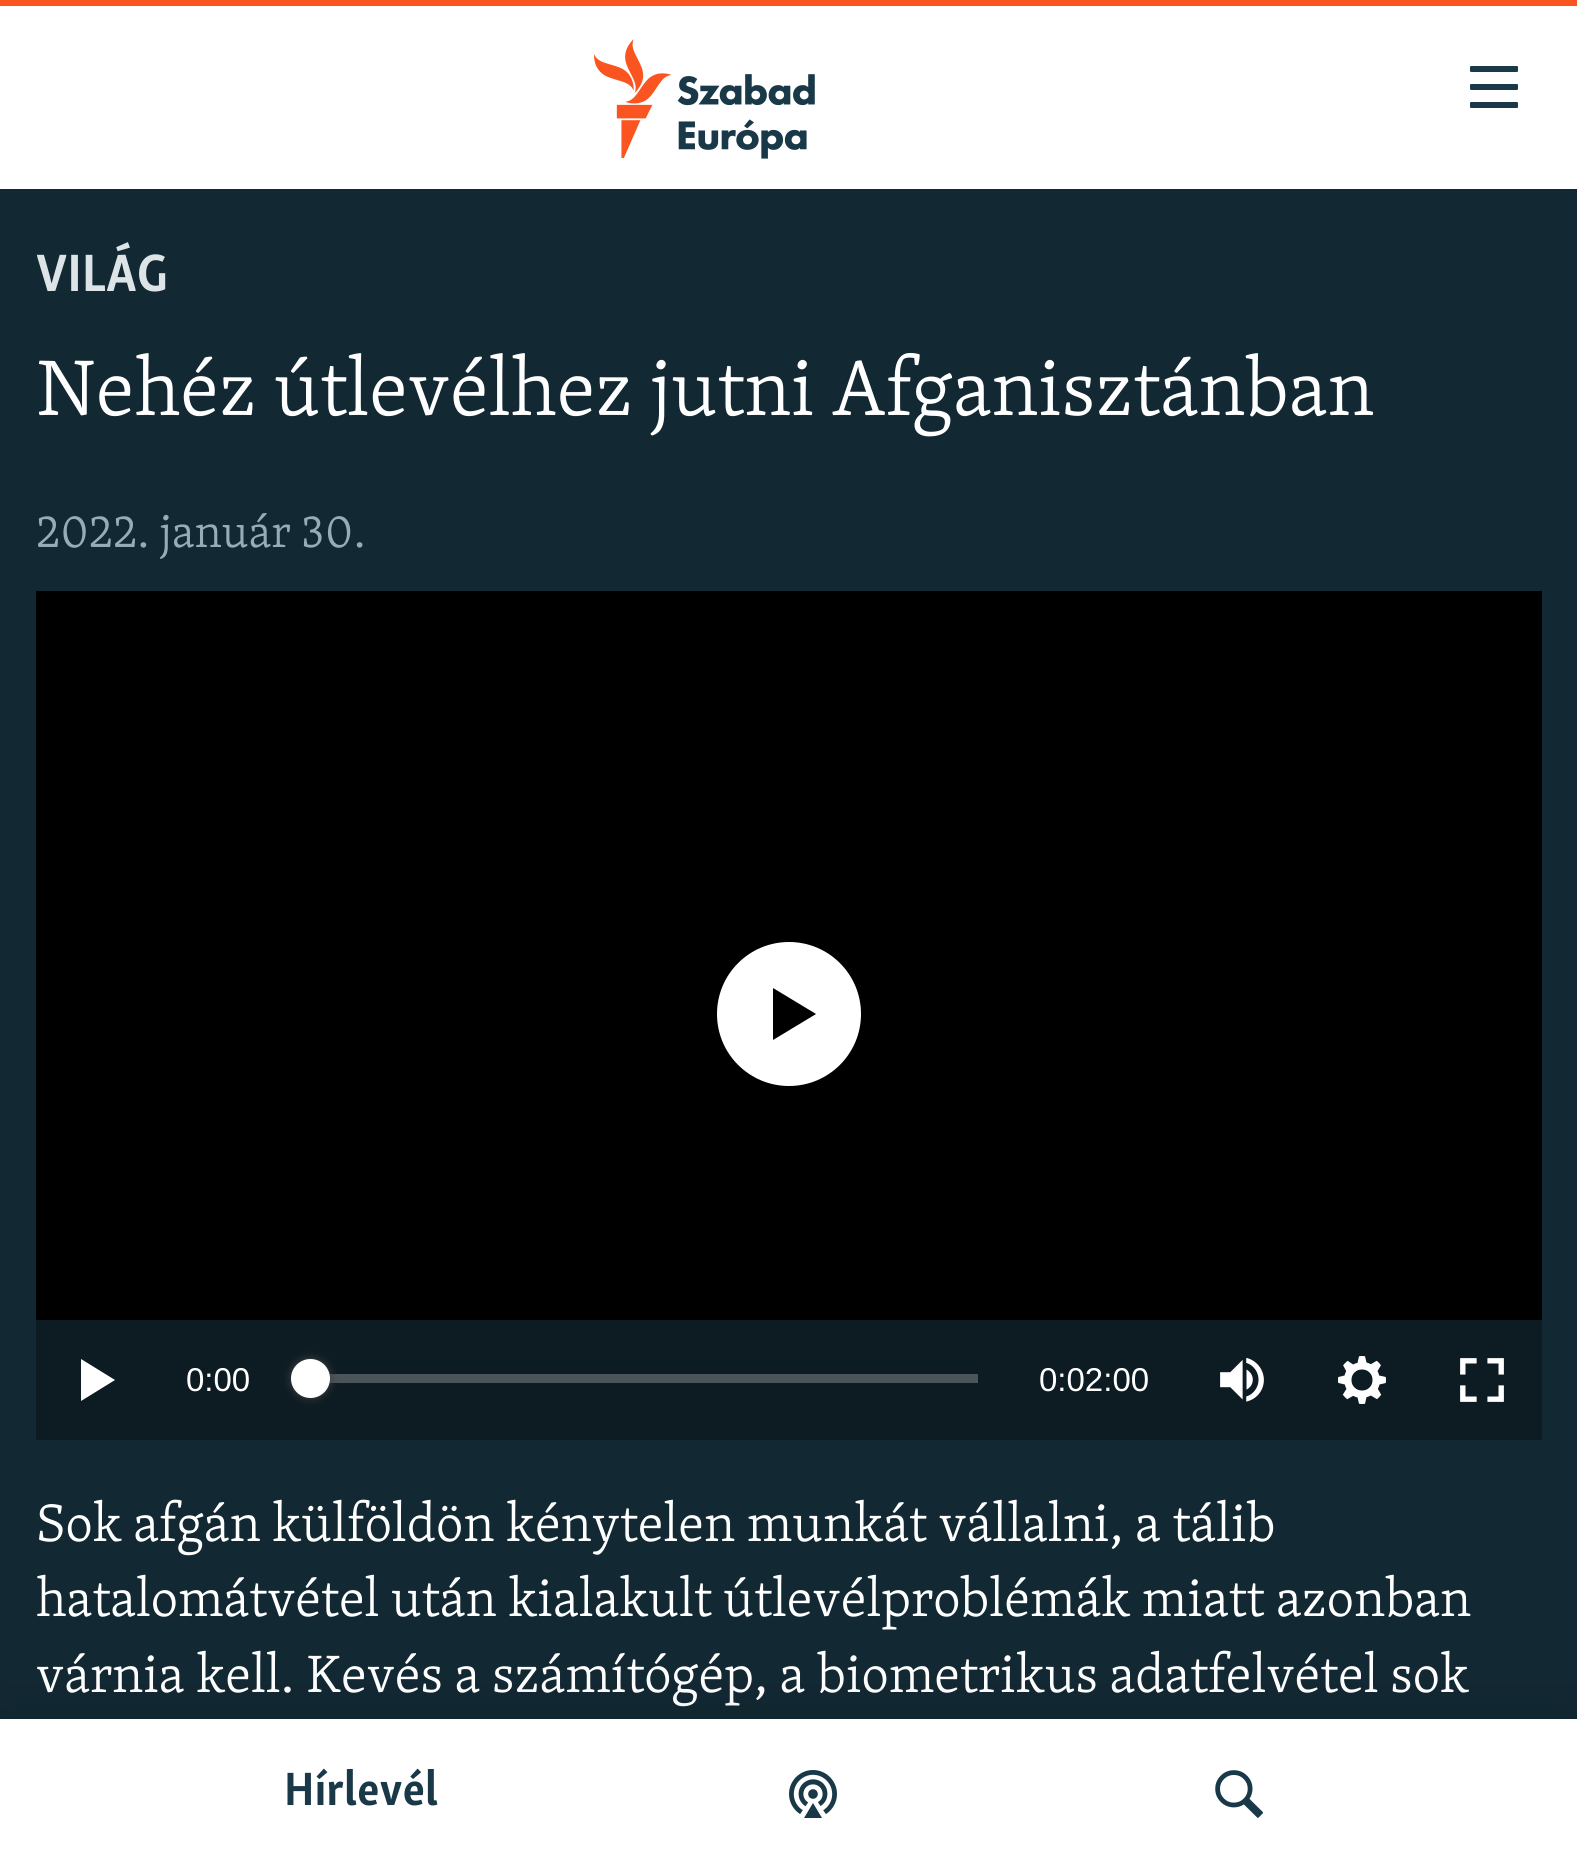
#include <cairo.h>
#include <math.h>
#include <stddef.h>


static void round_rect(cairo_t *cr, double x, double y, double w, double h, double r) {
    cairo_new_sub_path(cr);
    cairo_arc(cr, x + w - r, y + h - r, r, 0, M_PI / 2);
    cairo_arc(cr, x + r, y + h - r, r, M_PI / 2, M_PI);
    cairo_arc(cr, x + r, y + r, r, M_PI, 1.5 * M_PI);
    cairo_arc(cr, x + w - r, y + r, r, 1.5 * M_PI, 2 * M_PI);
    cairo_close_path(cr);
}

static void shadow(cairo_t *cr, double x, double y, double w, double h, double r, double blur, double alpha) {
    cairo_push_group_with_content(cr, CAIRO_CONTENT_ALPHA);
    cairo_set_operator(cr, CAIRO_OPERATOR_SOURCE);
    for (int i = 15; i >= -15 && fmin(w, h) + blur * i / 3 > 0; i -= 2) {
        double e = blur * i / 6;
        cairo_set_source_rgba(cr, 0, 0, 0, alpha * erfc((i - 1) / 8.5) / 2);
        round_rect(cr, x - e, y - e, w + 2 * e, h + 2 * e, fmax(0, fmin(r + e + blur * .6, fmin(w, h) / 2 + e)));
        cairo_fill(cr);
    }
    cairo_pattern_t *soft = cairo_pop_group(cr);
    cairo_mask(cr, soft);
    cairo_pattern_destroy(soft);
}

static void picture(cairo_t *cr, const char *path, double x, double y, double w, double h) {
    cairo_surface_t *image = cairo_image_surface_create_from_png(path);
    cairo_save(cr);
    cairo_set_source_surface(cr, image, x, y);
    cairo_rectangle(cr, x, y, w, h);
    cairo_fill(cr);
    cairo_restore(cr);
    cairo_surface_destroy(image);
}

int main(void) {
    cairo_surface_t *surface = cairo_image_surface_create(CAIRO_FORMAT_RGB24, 1577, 1867);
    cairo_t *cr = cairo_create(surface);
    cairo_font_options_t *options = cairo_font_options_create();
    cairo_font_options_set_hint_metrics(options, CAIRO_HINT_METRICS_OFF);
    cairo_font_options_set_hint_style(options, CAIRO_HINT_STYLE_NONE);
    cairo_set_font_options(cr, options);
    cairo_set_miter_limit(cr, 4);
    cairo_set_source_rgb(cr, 1, 1, 1);
    cairo_paint(cr);
    cairo_set_source_rgb(cr, 0.071, 0.157, 0.196);
    cairo_rectangle(cr, 0, 189, 1577, 1530);
    cairo_fill(cr);
    cairo_select_font_face(cr, "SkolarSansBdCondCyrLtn", CAIRO_FONT_SLANT_NORMAL, CAIRO_FONT_WEIGHT_BOLD);
    cairo_set_font_size(cr, 54);
    cairo_set_source_rgb(cr, 0.863, 0.894, 0.91);
    cairo_move_to(cr, 36, 291);
    cairo_show_text(cr, "VILÁG");
    cairo_select_font_face(cr, "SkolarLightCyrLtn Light", CAIRO_FONT_SLANT_NORMAL, CAIRO_FONT_WEIGHT_NORMAL);
    cairo_set_font_size(cr, 81);
    cairo_set_source_rgb(cr, 1, 1, 1);
    cairo_move_to(cr, 36, 415);
    cairo_show_text(cr, "Nehéz útlevélhez jutni Afganisztánban");
    cairo_set_font_size(cr, 47.25);
    cairo_set_source_rgb(cr, 0.584, 0.678, 0.725);
    cairo_move_to(cr, 36, 547);
    cairo_show_text(cr, "2022. január 30.");
    cairo_set_source_rgb(cr, 0, 0, 0);
    cairo_rectangle(cr, 36, 591, 1506, 729);
    cairo_fill(cr);
    cairo_set_source_rgb(cr, 1, 1, 1);
    cairo_arc(cr, 789, 1014, 72, 0, 2 * M_PI);
    cairo_fill(cr);
    cairo_set_source_rgb(cr, 0, 0, 0);
    cairo_new_path(cr);
    cairo_move_to(cr, 773, 1040);
    cairo_line_to(cr, 816, 1014);
    cairo_line_to(cr, 773, 988);
    cairo_close_path(cr);
    cairo_fill(cr);
    cairo_set_source_rgb(cr, 0.051, 0.106, 0.133);
    cairo_rectangle(cr, 36, 1320, 1506, 120);
    cairo_fill(cr);
    cairo_set_source_rgb(cr, 1, 1, 1);
    cairo_new_path(cr);
    cairo_move_to(cr, 81, 1401);
    cairo_line_to(cr, 115, 1380);
    cairo_line_to(cr, 81, 1359);
    cairo_close_path(cr);
    cairo_fill(cr);
    cairo_select_font_face(cr, "Liberation Sans", CAIRO_FONT_SLANT_NORMAL, CAIRO_FONT_WEIGHT_NORMAL);
    cairo_set_font_size(cr, 33);
    cairo_move_to(cr, 186, 1391);
    cairo_show_text(cr, "0:00");
    cairo_set_source_rgb(cr, 0.29, 0.329, 0.349);
    cairo_rectangle(cr, 329, 1374, 649, 9);
    cairo_fill(cr);
    cairo_set_source_rgb(cr, 0.255, 0.255, 0.267);
    shadow(cr, 291, 1359, 39, 39, 19.5, 4.5, 1);
    cairo_set_source_rgb(cr, 1, 1, 1);
    cairo_arc(cr, 310.5, 1378.5, 19.5, 0, 2 * M_PI);
    cairo_fill(cr);
    cairo_move_to(cr, 1039, 1391);
    cairo_show_text(cr, "0:02:00");
    picture(cr, "img1.png", 1220, 1357, 44, 45);
    picture(cr, "img2.png", 1338, 1356, 48, 48);
    picture(cr, "img3.png", 1460, 1358, 44, 44);
    cairo_select_font_face(cr, "SkolarLightCyrLtn Light", CAIRO_FONT_SLANT_NORMAL, CAIRO_FONT_WEIGHT_NORMAL);
    cairo_set_font_size(cr, 54);
    cairo_move_to(cr, 36, 1541);
    cairo_show_text(cr, "Sok afgán külföldön kénytelen munkát vállalni, a tálib");
    cairo_move_to(cr, 36, 1616);
    cairo_show_text(cr, "hatalomátvétel után kialakult útlevélproblémák miatt azonban");
    cairo_move_to(cr, 36, 1692);
    cairo_show_text(cr, "várnia kell. Kevés a számítógép, a biometrikus adatfelvétel sok");
    cairo_set_source_rgb(cr, 0.98, 0.329, 0.125);
    cairo_rectangle(cr, 0, 0, 1577, 6);
    cairo_fill(cr);
    picture(cr, "img4.png", 594, 39, 221, 120);
    picture(cr, "img5.png", 1470, 66, 48, 42);
    cairo_set_source_rgb(cr, 0, 0, 0);
    shadow(cr, 0, 1719, 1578, 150, 0, 30, 0.1);
    cairo_set_source_rgb(cr, 1, 1, 1);
    cairo_rectangle(cr, 0, 1719, 1577, 148);
    cairo_fill(cr);
    cairo_select_font_face(cr, "SkolarSansBdCondCyrLtn", CAIRO_FONT_SLANT_NORMAL, CAIRO_FONT_WEIGHT_BOLD);
    cairo_set_font_size(cr, 48);
    cairo_set_source_rgb(cr, 0.102, 0.224, 0.282);
    cairo_move_to(cr, 284, 1805);
    cairo_show_text(cr, "Hírlevél");
    picture(cr, "img6.png", 789, 1770, 48, 48);
    picture(cr, "img7.png", 1215, 1770, 48, 48);
    cairo_surface_write_to_png(surface, "page.png");
    cairo_font_options_destroy(options);
    cairo_destroy(cr);
    cairo_surface_destroy(surface);
    return 0;
}
